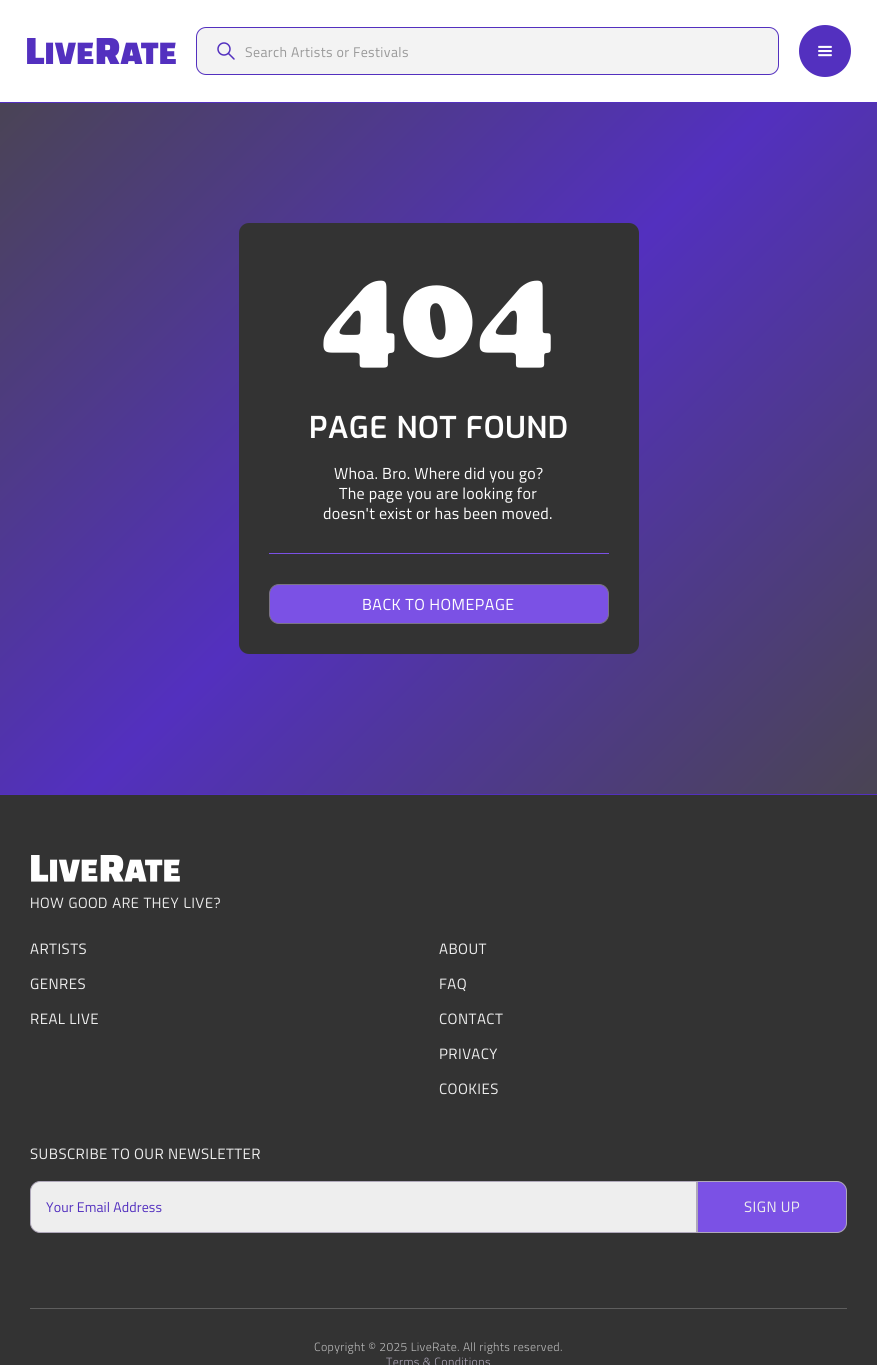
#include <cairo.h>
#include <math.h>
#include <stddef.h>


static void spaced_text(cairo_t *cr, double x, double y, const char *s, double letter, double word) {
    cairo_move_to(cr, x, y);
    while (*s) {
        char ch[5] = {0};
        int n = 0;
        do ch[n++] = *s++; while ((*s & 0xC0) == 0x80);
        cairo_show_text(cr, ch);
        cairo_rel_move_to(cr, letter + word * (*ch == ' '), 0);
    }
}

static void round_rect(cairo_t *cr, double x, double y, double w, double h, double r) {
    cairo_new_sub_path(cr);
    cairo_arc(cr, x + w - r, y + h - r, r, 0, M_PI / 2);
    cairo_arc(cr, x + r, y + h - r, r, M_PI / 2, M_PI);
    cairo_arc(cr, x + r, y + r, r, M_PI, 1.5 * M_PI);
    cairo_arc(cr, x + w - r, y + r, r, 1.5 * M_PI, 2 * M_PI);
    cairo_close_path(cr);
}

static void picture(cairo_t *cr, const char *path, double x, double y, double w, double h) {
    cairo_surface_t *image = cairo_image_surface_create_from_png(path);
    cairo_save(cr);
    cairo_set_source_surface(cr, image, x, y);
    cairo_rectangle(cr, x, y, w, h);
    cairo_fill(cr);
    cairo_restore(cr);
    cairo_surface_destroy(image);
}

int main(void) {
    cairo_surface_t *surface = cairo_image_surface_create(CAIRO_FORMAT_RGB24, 877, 1365);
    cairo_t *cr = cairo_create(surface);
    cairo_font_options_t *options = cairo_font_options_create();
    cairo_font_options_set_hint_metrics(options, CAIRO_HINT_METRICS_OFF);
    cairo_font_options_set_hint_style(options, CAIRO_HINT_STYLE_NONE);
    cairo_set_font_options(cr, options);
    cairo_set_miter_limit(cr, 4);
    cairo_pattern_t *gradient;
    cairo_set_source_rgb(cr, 0.2, 0.2, 0.2);
    cairo_paint(cr);
    cairo_set_source_rgb(cr, 1, 1, 1);
    cairo_rectangle(cr, 0, 0, 877, 102);
    cairo_fill(cr);
    cairo_set_source_rgb(cr, 0.325, 0.188, 0.749);
    cairo_rectangle(cr, 0, 102, 877, 1);
    cairo_fill(cr);
    picture(cr, "img1.png", 27, 38, 149, 26);
    cairo_set_source_rgb(cr, 0.953, 0.953, 0.953);
    round_rect(cr, 196.5, 27.5, 582, 47, 9.5);
    cairo_fill_preserve(cr);
    cairo_set_source_rgb(cr, 0.325, 0.188, 0.749);
    cairo_set_line_width(cr, 1);
    cairo_stroke(cr);
    picture(cr, "img2.png", 217, 42, 18, 18);
    cairo_select_font_face(cr, "Titillium Web", CAIRO_FONT_SLANT_NORMAL, CAIRO_FONT_WEIGHT_NORMAL);
    cairo_set_font_size(cr, 14);
    cairo_set_source_rgb(cr, 0.6, 0.6, 0.6);
    spaced_text(cr, 245, 57, "Search Artists or Festivals", 0.4, 0);
    cairo_set_source_rgb(cr, 0.325, 0.188, 0.749);
    cairo_new_path(cr);
    cairo_arc(cr, 825, 51, 26, 0, 2 * M_PI);
    cairo_fill(cr);
    picture(cr, "img3.png", 818, 45, 14, 12);
    gradient = cairo_pattern_create_linear(42, 42, 836, 836);
    cairo_pattern_add_color_stop_rgba(gradient, 0, 0.29, 0.267, 0.325, 1);
    cairo_pattern_add_color_stop_rgba(gradient, 0.5, 0.325, 0.188, 0.749, 1);
    cairo_pattern_add_color_stop_rgba(gradient, 1, 0.29, 0.267, 0.325, 1);
    cairo_set_source(cr, gradient);
    cairo_pattern_destroy(gradient);
    cairo_rectangle(cr, 0, 103, 877, 691);
    cairo_fill(cr);
    cairo_set_source_rgb(cr, 0.2, 0.2, 0.2);
    round_rect(cr, 239, 223, 400, 431, 10);
    cairo_fill(cr);
    cairo_select_font_face(cr, "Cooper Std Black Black", CAIRO_FONT_SLANT_NORMAL, CAIRO_FONT_WEIGHT_NORMAL);
    cairo_set_font_size(cr, 120);
    cairo_set_source_rgb(cr, 1, 1, 1);
    spaced_text(cr, 322, 356, "404", 2.5, 0);
    cairo_select_font_face(cr, "Exo SemiBold", CAIRO_FONT_SLANT_NORMAL, CAIRO_FONT_WEIGHT_NORMAL);
    cairo_set_font_size(cr, 30);
    spaced_text(cr, 309, 438, "PAGE NOT FOUND", 0.6, 0);
    cairo_select_font_face(cr, "Titillium Web", CAIRO_FONT_SLANT_NORMAL, CAIRO_FONT_WEIGHT_NORMAL);
    cairo_set_font_size(cr, 16);
    spaced_text(cr, 334, 479, "Whoa. Bro. Where did you go?", 0.3, 0);
    spaced_text(cr, 339, 499, "The page you are looking for", 0.3, 0);
    spaced_text(cr, 323, 519, "doesn't exist or has been moved.", 0.3, 0);
    cairo_set_source_rgb(cr, 0.482, 0.318, 0.898);
    cairo_rectangle(cr, 269, 553, 340, 1);
    cairo_fill(cr);
    round_rect(cr, 269.5, 584.5, 339, 39, 9.5);
    cairo_fill_preserve(cr);
    cairo_set_source_rgb(cr, 0.482, 0.455, 0.522);
    cairo_stroke(cr);
    cairo_set_source_rgb(cr, 1, 1, 1);
    spaced_text(cr, 362, 610, "BACK TO HOMEPAGE", 0.5, 0);
    cairo_set_source_rgb(cr, 0.325, 0.188, 0.749);
    cairo_rectangle(cr, 0, 794, 877, 1);
    cairo_fill(cr);
    picture(cr, "img4.png", 31, 855, 149, 27);
    cairo_select_font_face(cr, "Exo", CAIRO_FONT_SLANT_NORMAL, CAIRO_FONT_WEIGHT_NORMAL);
    cairo_set_font_size(cr, 14);
    cairo_set_source_rgb(cr, 0.933, 0.933, 0.933);
    spaced_text(cr, 30, 908, "HOW GOOD ARE THEY LIVE?", 0.4, 0);
    cairo_select_font_face(cr, "Titillium Web", CAIRO_FONT_SLANT_NORMAL, CAIRO_FONT_WEIGHT_NORMAL);
    cairo_set_font_size(cr, 15);
    spaced_text(cr, 30, 954, "ARTISTS", 0.45, 0);
    spaced_text(cr, 30, 989, "GENRES", 0.45, 0);
    spaced_text(cr, 30, 1024, "REAL LIVE", 0.45, 0);
    spaced_text(cr, 439, 954, "ABOUT", 0.45, 0);
    spaced_text(cr, 439, 989, "FAQ", 0.45, 0);
    spaced_text(cr, 439, 1024, "CONTACT", 0.45, 0);
    spaced_text(cr, 439, 1059, "PRIVACY", 0.45, 0);
    spaced_text(cr, 439, 1094, "COOKIES", 0.45, 0);
    spaced_text(cr, 30, 1159, "SUBSCRIBE TO OUR NEWSLETTER", 0.45, 0);
    cairo_new_path(cr);
    cairo_move_to(cr, 40, 1181.5);
    cairo_line_to(cr, 696.5, 1181.5);
    cairo_line_to(cr, 696.5, 1232.5);
    cairo_line_to(cr, 40, 1232.5);
    cairo_curve_to(cr, 35, 1232.5, 30.5, 1228, 30.5, 1223);
    cairo_line_to(cr, 30.5, 1191);
    cairo_curve_to(cr, 30.5, 1186, 35, 1181.5, 40, 1181.5);
    cairo_close_path(cr);
    cairo_fill_preserve(cr);
    cairo_set_source_rgb(cr, 0.686, 0.659, 0.729);
    cairo_stroke(cr);
    cairo_set_font_size(cr, 14);
    cairo_set_source_rgb(cr, 0.325, 0.188, 0.749);
    spaced_text(cr, 46, 1212, "Your Email Address", 0.1, 0);
    cairo_set_source_rgb(cr, 0.482, 0.318, 0.898);
    cairo_new_path(cr);
    cairo_move_to(cr, 697.5, 1181.5);
    cairo_line_to(cr, 837, 1181.5);
    cairo_curve_to(cr, 842, 1181.5, 846.5, 1186, 846.5, 1191);
    cairo_line_to(cr, 846.5, 1223);
    cairo_curve_to(cr, 846.5, 1228, 842, 1232.5, 837, 1232.5);
    cairo_line_to(cr, 697.5, 1232.5);
    cairo_close_path(cr);
    cairo_fill_preserve(cr);
    cairo_set_source_rgb(cr, 0.686, 0.659, 0.729);
    cairo_stroke(cr);
    cairo_set_font_size(cr, 15);
    cairo_set_source_rgb(cr, 0.933, 0.933, 0.933);
    spaced_text(cr, 744, 1212, "SIGN UP", 0.45, 0);
    cairo_set_source_rgb(cr, 0.369, 0.369, 0.369);
    cairo_rectangle(cr, 30, 1308, 817, 1);
    cairo_fill(cr);
    cairo_select_font_face(cr, "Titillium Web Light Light", CAIRO_FONT_SLANT_NORMAL, CAIRO_FONT_WEIGHT_NORMAL);
    cairo_set_font_size(cr, 12);
    cairo_set_source_rgb(cr, 0.733, 0.733, 0.733);
    spaced_text(cr, 314, 1351, "Copyright © 2025 LiveRate. All rights reserved.", 0.35, 0);
    cairo_set_source_rgb(cr, 0.686, 0.659, 0.729);
    spaced_text(cr, 386, 1366, "Terms & Conditions", 0.35, 0);
    cairo_surface_write_to_png(surface, "page.png");
    cairo_font_options_destroy(options);
    cairo_destroy(cr);
    cairo_surface_destroy(surface);
    return 0;
}
